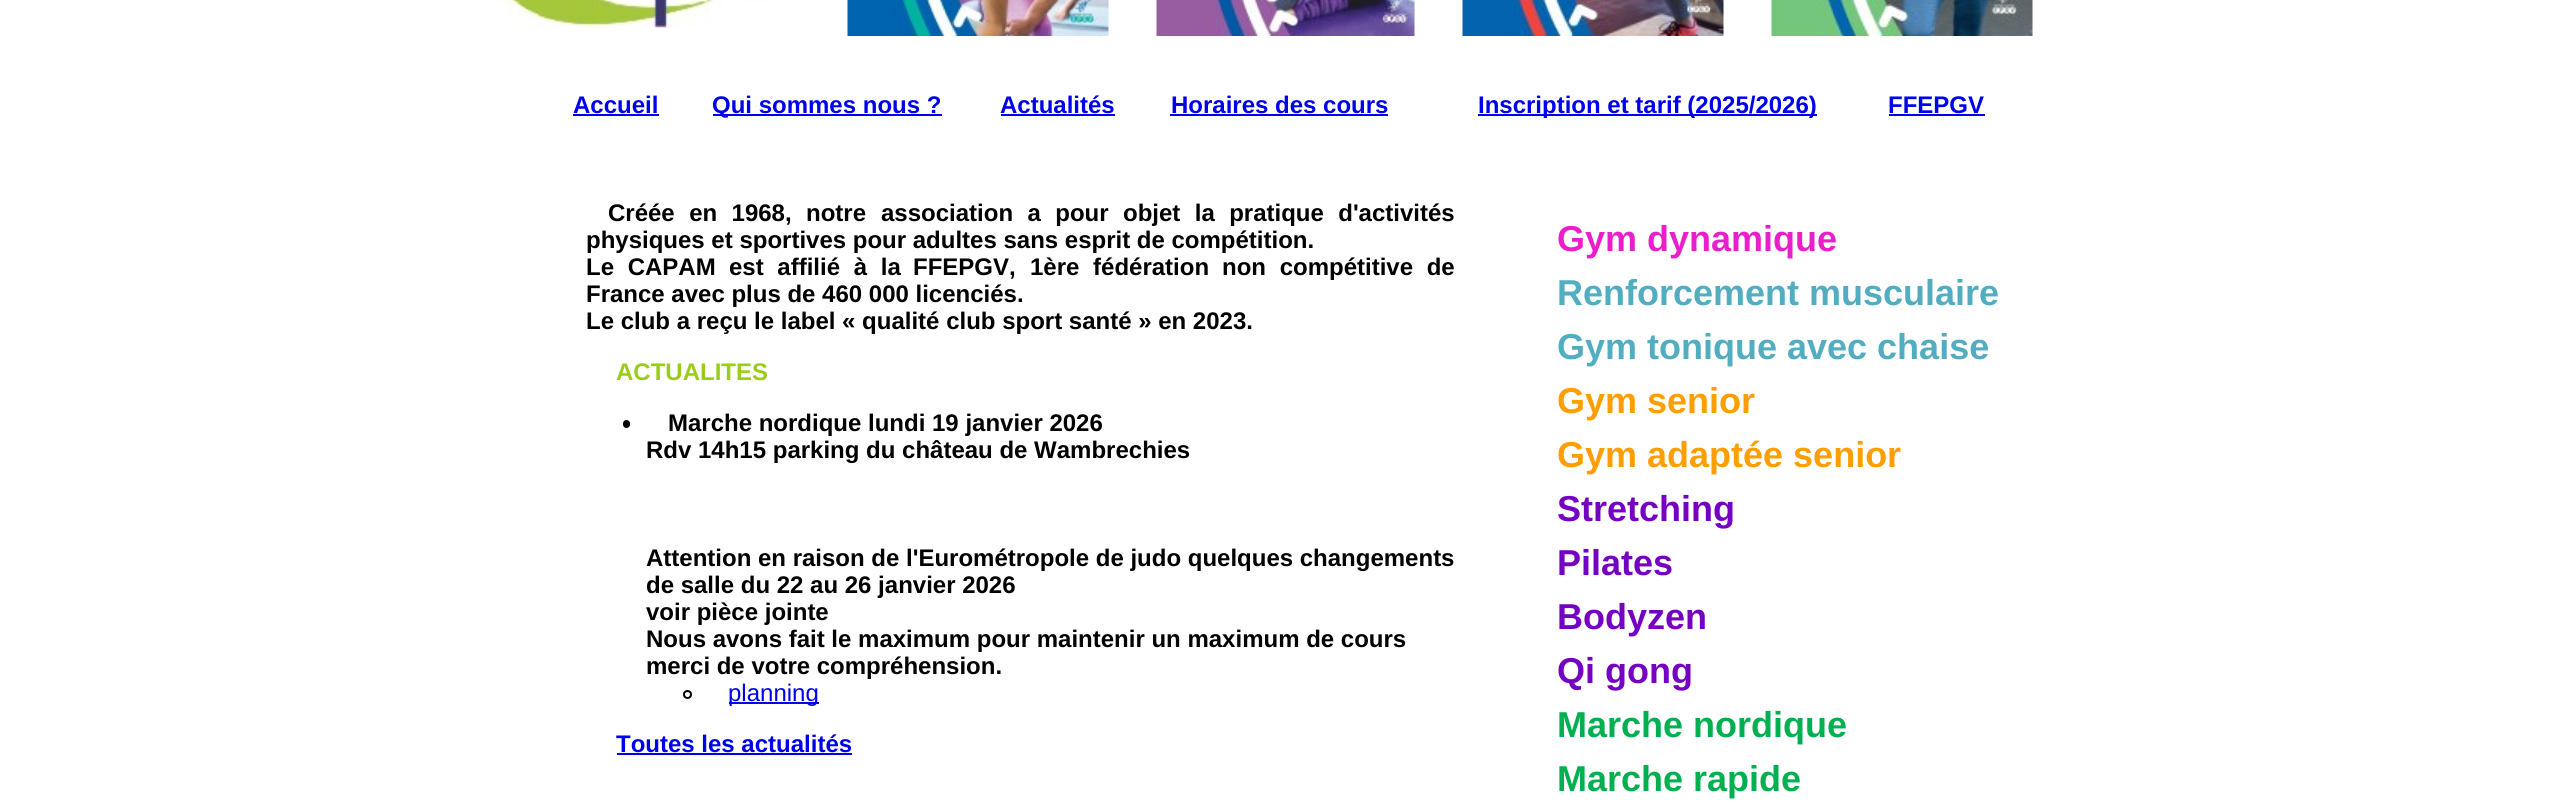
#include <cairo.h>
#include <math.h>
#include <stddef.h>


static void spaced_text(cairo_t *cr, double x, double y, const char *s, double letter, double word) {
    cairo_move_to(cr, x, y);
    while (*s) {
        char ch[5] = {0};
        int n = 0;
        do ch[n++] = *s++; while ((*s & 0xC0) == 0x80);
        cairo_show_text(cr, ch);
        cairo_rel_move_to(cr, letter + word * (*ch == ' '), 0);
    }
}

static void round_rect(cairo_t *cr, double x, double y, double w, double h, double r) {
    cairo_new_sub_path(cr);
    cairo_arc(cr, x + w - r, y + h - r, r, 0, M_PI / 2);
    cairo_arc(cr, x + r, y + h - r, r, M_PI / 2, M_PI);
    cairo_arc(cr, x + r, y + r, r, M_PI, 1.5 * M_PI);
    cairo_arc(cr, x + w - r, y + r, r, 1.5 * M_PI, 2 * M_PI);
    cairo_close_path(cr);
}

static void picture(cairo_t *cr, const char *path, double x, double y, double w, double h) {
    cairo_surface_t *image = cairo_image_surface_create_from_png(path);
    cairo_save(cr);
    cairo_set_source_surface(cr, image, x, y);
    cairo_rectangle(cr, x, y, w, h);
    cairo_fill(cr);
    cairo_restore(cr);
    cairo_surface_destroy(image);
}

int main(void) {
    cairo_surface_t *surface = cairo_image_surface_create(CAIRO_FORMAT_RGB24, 2558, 803);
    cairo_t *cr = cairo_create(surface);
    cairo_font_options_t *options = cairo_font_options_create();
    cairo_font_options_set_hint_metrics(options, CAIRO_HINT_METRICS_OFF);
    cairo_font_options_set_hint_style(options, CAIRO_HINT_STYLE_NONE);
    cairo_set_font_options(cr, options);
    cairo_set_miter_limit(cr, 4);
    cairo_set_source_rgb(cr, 1, 1, 1);
    cairo_paint(cr);
    picture(cr, "img1.png", 482, 0, 286, 28);
    picture(cr, "img2.png", 847, 0, 262, 36);
    picture(cr, "img3.png", 1156, 0, 259, 36);
    picture(cr, "img4.png", 1462, 0, 262, 36);
    picture(cr, "img5.png", 1771, 0, 262, 36);
    cairo_select_font_face(cr, "Liberation Sans", CAIRO_FONT_SLANT_NORMAL, CAIRO_FONT_WEIGHT_BOLD);
    cairo_set_font_size(cr, 24);
    cairo_set_source_rgb(cr, 0, 0, 0.933);
    cairo_move_to(cr, 573, 113);
    cairo_show_text(cr, "Accueil");
    cairo_rectangle(cr, 573, 114, 86, 2);
    cairo_fill(cr);
    cairo_rectangle(cr, 713, 114, 229, 2);
    cairo_fill(cr);
    cairo_move_to(cr, 712, 113);
    cairo_show_text(cr, "Qui sommes nous ?");
    cairo_move_to(cr, 1000, 113);
    cairo_show_text(cr, "Actualités");
    cairo_rectangle(cr, 1001, 114, 114, 2);
    cairo_fill(cr);
    cairo_move_to(cr, 1171, 113);
    cairo_show_text(cr, "Horaires des cours");
    cairo_rectangle(cr, 1170, 114, 218, 2);
    cairo_fill(cr);
    cairo_rectangle(cr, 1478, 114, 339, 2);
    cairo_fill(cr);
    cairo_move_to(cr, 1478, 113);
    cairo_show_text(cr, "Inscription et tarif (2025/2026)");
    cairo_move_to(cr, 1888, 113);
    cairo_show_text(cr, "FFEPGV");
    cairo_rectangle(cr, 1889, 114, 96, 2);
    cairo_fill(cr);
    cairo_set_source_rgb(cr, 0, 0, 0);
    spaced_text(cr, 608, 221, "Créée en 1968, notre", 0, 7.75);
    spaced_text(cr, 881, 221, "association a pour objet la pratique d'activités", 0, 7.75);
    cairo_move_to(cr, 586, 248);
    cairo_show_text(cr, "physiques et sportives pour adultes sans esprit de compétition.");
    spaced_text(cr, 586, 275, "Le CAPAM", 0, 7);
    spaced_text(cr, 729, 275, "est affilié à la", 0, 7);
    cairo_move_to(cr, 913, 275);
    cairo_show_text(cr, "FFEPGV,");
    spaced_text(cr, 1030, 275, "1ère fédération", 0, 7);
    spaced_text(cr, 1222, 275, "non compétitive de", 0, 7);
    cairo_move_to(cr, 586, 302);
    cairo_show_text(cr, "France avec plus de 460 000 licenciés.");
    cairo_move_to(cr, 586, 329);
    cairo_show_text(cr, "Le club a reçu le label « qualité club sport santé » en 2023.");
    cairo_set_source_rgb(cr, 0.604, 0.808, 0.086);
    cairo_move_to(cr, 616, 380);
    cairo_show_text(cr, "ACTUALITES");
    cairo_set_source_rgb(cr, 0, 0, 0);
    round_rect(cr, 623, 420, 7, 8, 3.5);
    cairo_fill(cr);
    cairo_move_to(cr, 668, 431);
    cairo_show_text(cr, "Marche nordique lundi 19 janvier 2026");
    cairo_move_to(cr, 646, 458);
    cairo_show_text(cr, "Rdv 14h15 parking du château de Wambrechies");
    cairo_move_to(cr, 646, 566);
    cairo_show_text(cr, "Attention en raison de l'Eurométropole de judo quelques changements");
    cairo_move_to(cr, 646, 593);
    cairo_show_text(cr, "de salle du 22 au 26 janvier 2026");
    cairo_move_to(cr, 646, 620);
    cairo_show_text(cr, "voir pièce jointe");
    cairo_move_to(cr, 646, 647);
    cairo_show_text(cr, "Nous avons fait le maximum pour maintenir un maximum de cours");
    cairo_move_to(cr, 646, 674);
    cairo_show_text(cr, "merci de votre compréhension.");
    cairo_new_path(cr);
    cairo_arc(cr, 687.5, 694.5, 3.5, 0, 2 * M_PI);
    cairo_stroke(cr);
    cairo_set_source_rgb(cr, 0, 0, 0.933);
    cairo_rectangle(cr, 729, 702, 90, 2);
    cairo_fill(cr);
    cairo_select_font_face(cr, "Liberation Sans", CAIRO_FONT_SLANT_NORMAL, CAIRO_FONT_WEIGHT_NORMAL);
    cairo_move_to(cr, 728, 701);
    cairo_show_text(cr, "planning");
    cairo_select_font_face(cr, "Liberation Sans", CAIRO_FONT_SLANT_NORMAL, CAIRO_FONT_WEIGHT_BOLD);
    cairo_move_to(cr, 616, 752);
    cairo_show_text(cr, "Toutes les actualités");
    cairo_rectangle(cr, 617, 753, 235, 2);
    cairo_fill(cr);
    cairo_set_font_size(cr, 36);
    cairo_set_source_rgb(cr, 0.914, 0.122, 0.8);
    cairo_move_to(cr, 1557, 251);
    cairo_show_text(cr, "Gym dynamique");
    cairo_set_source_rgb(cr, 0.318, 0.678, 0.749);
    cairo_move_to(cr, 1557, 305);
    cairo_show_text(cr, "Renforcement musculaire");
    cairo_move_to(cr, 1557, 359);
    cairo_show_text(cr, "Gym tonique avec chaise");
    cairo_set_source_rgb(cr, 1, 0.62, 0);
    cairo_move_to(cr, 1557, 413);
    cairo_show_text(cr, "Gym senior");
    cairo_move_to(cr, 1557, 467);
    cairo_show_text(cr, "Gym adaptée senior");
    cairo_set_source_rgb(cr, 0.463, 0, 0.761);
    cairo_move_to(cr, 1557, 521);
    cairo_show_text(cr, "Stretching");
    cairo_move_to(cr, 1557, 575);
    cairo_show_text(cr, "Pilates");
    cairo_move_to(cr, 1557, 629);
    cairo_show_text(cr, "Bodyzen");
    cairo_move_to(cr, 1557, 683);
    cairo_show_text(cr, "Qi gong");
    cairo_set_source_rgb(cr, 0, 0.69, 0.314);
    cairo_move_to(cr, 1557, 737);
    cairo_show_text(cr, "Marche nordique");
    cairo_move_to(cr, 1557, 791);
    cairo_show_text(cr, "Marche rapide");
    cairo_surface_write_to_png(surface, "page.png");
    cairo_font_options_destroy(options);
    cairo_destroy(cr);
    cairo_surface_destroy(surface);
    return 0;
}
